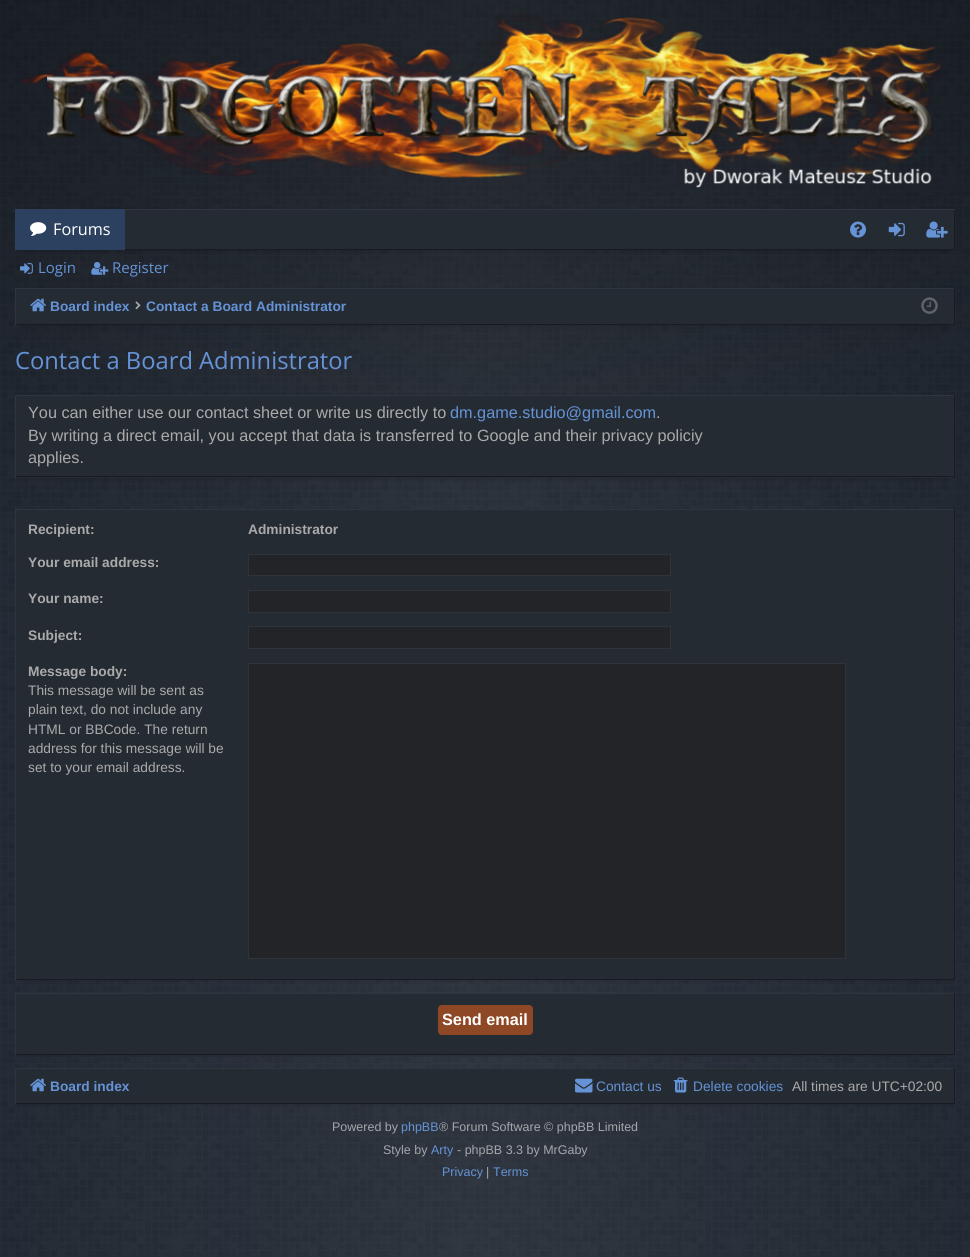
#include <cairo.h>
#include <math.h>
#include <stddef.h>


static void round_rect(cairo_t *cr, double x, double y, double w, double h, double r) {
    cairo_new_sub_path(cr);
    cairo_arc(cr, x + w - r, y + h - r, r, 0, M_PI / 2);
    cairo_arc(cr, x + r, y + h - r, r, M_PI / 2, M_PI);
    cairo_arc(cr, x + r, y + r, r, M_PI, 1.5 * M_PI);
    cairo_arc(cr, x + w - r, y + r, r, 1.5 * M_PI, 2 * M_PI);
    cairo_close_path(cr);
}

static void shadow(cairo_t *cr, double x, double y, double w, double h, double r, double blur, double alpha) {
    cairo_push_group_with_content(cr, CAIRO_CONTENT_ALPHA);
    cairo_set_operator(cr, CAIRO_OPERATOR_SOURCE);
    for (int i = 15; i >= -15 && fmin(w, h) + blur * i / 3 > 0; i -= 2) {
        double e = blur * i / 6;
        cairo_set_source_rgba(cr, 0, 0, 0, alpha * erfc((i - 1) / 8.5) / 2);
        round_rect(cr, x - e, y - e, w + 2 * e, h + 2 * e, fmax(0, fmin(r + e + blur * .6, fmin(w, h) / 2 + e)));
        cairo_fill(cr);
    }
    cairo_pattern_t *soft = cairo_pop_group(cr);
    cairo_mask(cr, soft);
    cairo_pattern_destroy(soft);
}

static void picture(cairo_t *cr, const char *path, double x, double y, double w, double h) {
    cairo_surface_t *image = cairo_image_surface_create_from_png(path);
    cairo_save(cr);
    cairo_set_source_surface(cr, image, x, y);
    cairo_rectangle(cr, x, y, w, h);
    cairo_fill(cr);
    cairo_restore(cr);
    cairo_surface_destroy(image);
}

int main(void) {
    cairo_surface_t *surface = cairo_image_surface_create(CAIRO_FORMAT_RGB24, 970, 1257);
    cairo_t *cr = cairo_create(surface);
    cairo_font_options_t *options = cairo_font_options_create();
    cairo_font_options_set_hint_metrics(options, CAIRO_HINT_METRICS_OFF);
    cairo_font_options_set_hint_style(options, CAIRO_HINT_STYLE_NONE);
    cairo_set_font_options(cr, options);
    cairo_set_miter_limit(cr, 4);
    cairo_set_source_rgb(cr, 0.11, 0.137, 0.18);
    cairo_paint(cr);
    picture(cr, "img1.png", 0, 0, 970, 1257);
    picture(cr, "img2.png", 21, 14, 922, 174);
    cairo_set_source_rgb(cr, 0, 0, 0);
    shadow(cr, 21, 221, 928, 29, 0, 3, 0.2);
    cairo_set_source_rgb(cr, 0.145, 0.169, 0.2);
    cairo_rectangle(cr, 125, 210, 829, 39);
    cairo_fill(cr);
    cairo_save(cr);
    cairo_rectangle(cr, 15, 209, 940, 41);
    cairo_clip(cr);
    cairo_set_source_rgb(cr, 0.094, 0.11, 0.129);
    cairo_set_fill_rule(cr, CAIRO_FILL_RULE_EVEN_ODD);
    cairo_new_path(cr);
    cairo_move_to(cr, -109, 85);
    cairo_line_to(cr, 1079, 85);
    cairo_line_to(cr, 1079, 374);
    cairo_line_to(cr, -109, 374);
    cairo_close_path(cr);
    cairo_move_to(cr, 14, 208);
    cairo_line_to(cr, 954, 208);
    cairo_line_to(cr, 954, 249);
    cairo_line_to(cr, 14, 249);
    cairo_close_path(cr);
    cairo_fill(cr);
    cairo_set_source_rgb(cr, 0.18, 0.208, 0.247);
    cairo_new_path(cr);
    cairo_move_to(cr, -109, 85);
    cairo_line_to(cr, 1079, 85);
    cairo_line_to(cr, 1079, 374);
    cairo_line_to(cr, -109, 374);
    cairo_close_path(cr);
    cairo_move_to(cr, 16, 210);
    cairo_line_to(cr, 956, 210);
    cairo_line_to(cr, 956, 251);
    cairo_line_to(cr, 16, 251);
    cairo_close_path(cr);
    cairo_fill(cr);
    cairo_restore(cr);
    cairo_set_source_rgb(cr, 0.173, 0.255, 0.373);
    cairo_rectangle(cr, 15, 209, 110, 41);
    cairo_fill(cr);
    picture(cr, "img3.png", 30, 222, 17, 14);
    cairo_select_font_face(cr, "Open Sans", CAIRO_FONT_SLANT_NORMAL, CAIRO_FONT_WEIGHT_NORMAL);
    cairo_set_font_size(cr, 16.25);
    cairo_set_source_rgb(cr, 1, 1, 1);
    cairo_move_to(cr, 53, 235);
    cairo_show_text(cr, "Forums");
    picture(cr, "img4.png", 850, 221, 17, 17);
    picture(cr, "img5.png", 888, 222, 17, 15);
    picture(cr, "img6.png", 926, 221, 22, 17);
    picture(cr, "img7.png", 20, 263, 13, 11);
    cairo_set_font_size(cr, 15);
    cairo_set_source_rgb(cr, 0.396, 0.576, 0.839);
    cairo_move_to(cr, 38, 273);
    cairo_show_text(cr, "Login");
    picture(cr, "img8.png", 91, 262, 18, 13);
    cairo_move_to(cr, 112, 273);
    cairo_show_text(cr, "Register");
    cairo_set_source_rgb(cr, 0, 0, 0);
    shadow(cr, 21, 300, 928, 25, 0, 3, 0.2);
    cairo_set_source_rgb(cr, 0.145, 0.169, 0.2);
    cairo_rectangle(cr, 16, 289, 938, 35);
    cairo_fill(cr);
    cairo_set_source_rgb(cr, 0.18, 0.208, 0.247);
    cairo_rectangle(cr, 15, 288, 940, 1);
    cairo_fill(cr);
    cairo_set_source_rgb(cr, 0.094, 0.11, 0.129);
    cairo_rectangle(cr, 954, 288, 1, 37);
    cairo_fill(cr);
    cairo_rectangle(cr, 15, 324, 940, 1);
    cairo_fill(cr);
    cairo_set_source_rgb(cr, 0.18, 0.208, 0.247);
    cairo_rectangle(cr, 15, 288, 1, 37);
    cairo_fill(cr);
    picture(cr, "img9.png", 30, 298, 16, 14);
    cairo_select_font_face(cr, "Liberation Sans", CAIRO_FONT_SLANT_NORMAL, CAIRO_FONT_WEIGHT_BOLD);
    cairo_set_font_size(cr, 13.75);
    cairo_set_source_rgb(cr, 0.396, 0.576, 0.839);
    cairo_move_to(cr, 50, 311);
    cairo_show_text(cr, "Board index");
    picture(cr, "img10.png", 135, 301, 6, 9);
    cairo_move_to(cr, 146, 311);
    cairo_show_text(cr, "Contact a Board Administrator");
    picture(cr, "img11.png", 921, 297, 17, 17);
    cairo_select_font_face(cr, "Open Sans", CAIRO_FONT_SLANT_NORMAL, CAIRO_FONT_WEIGHT_NORMAL);
    cairo_set_font_size(cr, 23.75);
    cairo_move_to(cr, 15, 369);
    cairo_show_text(cr, "Contact a Board Administrator");
    cairo_set_source_rgb(cr, 0, 0, 0);
    shadow(cr, 21, 408, 928, 70, 0, 3, 0.2);
    cairo_set_source_rgb(cr, 0.145, 0.169, 0.2);
    cairo_rectangle(cr, 16, 396, 938, 82);
    cairo_fill(cr);
    cairo_set_source_rgb(cr, 0.18, 0.208, 0.247);
    cairo_rectangle(cr, 15, 395, 940, 1);
    cairo_fill(cr);
    cairo_set_source_rgb(cr, 0.094, 0.11, 0.129);
    cairo_rectangle(cr, 954, 395, 1, 83);
    cairo_fill(cr);
    cairo_rectangle(cr, 15, 476, 940, 1);
    cairo_fill(cr);
    cairo_set_source_rgb(cr, 0.18, 0.208, 0.247);
    cairo_rectangle(cr, 15, 395, 1, 83);
    cairo_fill(cr);
    cairo_select_font_face(cr, "Liberation Sans", CAIRO_FONT_SLANT_NORMAL, CAIRO_FONT_WEIGHT_NORMAL);
    cairo_set_font_size(cr, 16.25);
    cairo_set_source_rgb(cr, 0.667, 0.667, 0.667);
    cairo_move_to(cr, 28, 418);
    cairo_show_text(cr, "You can either use our contact sheet or write us directly to");
    cairo_set_source_rgb(cr, 0.396, 0.576, 0.839);
    cairo_move_to(cr, 450, 418);
    cairo_show_text(cr, "dm.game.studio@gmail.com");
    cairo_set_source_rgb(cr, 0.667, 0.667, 0.667);
    cairo_move_to(cr, 656, 418);
    cairo_show_text(cr, ".");
    cairo_move_to(cr, 28, 441);
    cairo_show_text(cr, "By writing a direct email, you accept that data is transferred to Google and their privacy policiy");
    cairo_move_to(cr, 28, 463);
    cairo_show_text(cr, "applies.");
    cairo_set_source_rgb(cr, 0, 0, 0);
    shadow(cr, 21, 521, 928, 459, 0, 3, 0.2);
    cairo_set_source_rgb(cr, 0.145, 0.169, 0.2);
    cairo_rectangle(cr, 16, 510, 938, 469);
    cairo_fill(cr);
    cairo_set_source_rgb(cr, 0.18, 0.208, 0.247);
    cairo_rectangle(cr, 15, 509, 940, 1);
    cairo_fill(cr);
    cairo_set_source_rgb(cr, 0.094, 0.11, 0.129);
    cairo_rectangle(cr, 954, 509, 1, 471);
    cairo_fill(cr);
    cairo_rectangle(cr, 15, 979, 940, 1);
    cairo_fill(cr);
    cairo_set_source_rgb(cr, 0.18, 0.208, 0.247);
    cairo_rectangle(cr, 15, 509, 1, 471);
    cairo_fill(cr);
    cairo_select_font_face(cr, "Liberation Sans", CAIRO_FONT_SLANT_NORMAL, CAIRO_FONT_WEIGHT_BOLD);
    cairo_set_font_size(cr, 13.75);
    cairo_set_source_rgb(cr, 0.667, 0.667, 0.667);
    cairo_move_to(cr, 28, 534);
    cairo_show_text(cr, "Recipient:");
    cairo_move_to(cr, 248, 534);
    cairo_show_text(cr, "Administrator");
    cairo_move_to(cr, 28, 567);
    cairo_show_text(cr, "Your email address:");
    cairo_set_source_rgb(cr, 0.133, 0.141, 0.153);
    cairo_rectangle(cr, 248.5, 554.5, 422, 21);
    cairo_fill_preserve(cr);
    cairo_set_source_rgb(cr, 0.188, 0.204, 0.227);
    cairo_set_line_width(cr, 1);
    cairo_stroke(cr);
    cairo_set_source_rgb(cr, 0.667, 0.667, 0.667);
    cairo_move_to(cr, 28, 603);
    cairo_show_text(cr, "Your name:");
    cairo_set_source_rgb(cr, 0.133, 0.141, 0.153);
    cairo_rectangle(cr, 248.5, 590.5, 422, 22);
    cairo_fill_preserve(cr);
    cairo_set_source_rgb(cr, 0.188, 0.204, 0.227);
    cairo_stroke(cr);
    cairo_set_source_rgb(cr, 0.667, 0.667, 0.667);
    cairo_move_to(cr, 28, 640);
    cairo_show_text(cr, "Subject:");
    cairo_set_source_rgb(cr, 0.133, 0.141, 0.153);
    cairo_rectangle(cr, 248.5, 626.5, 422, 22);
    cairo_fill_preserve(cr);
    cairo_set_source_rgb(cr, 0.188, 0.204, 0.227);
    cairo_stroke(cr);
    cairo_set_source_rgb(cr, 0.667, 0.667, 0.667);
    cairo_move_to(cr, 28, 676);
    cairo_show_text(cr, "Message body:");
    cairo_select_font_face(cr, "Liberation Sans", CAIRO_FONT_SLANT_NORMAL, CAIRO_FONT_WEIGHT_NORMAL);
    cairo_move_to(cr, 28, 695);
    cairo_show_text(cr, "This message will be sent as");
    cairo_move_to(cr, 28, 714);
    cairo_show_text(cr, "plain text, do not include any");
    cairo_move_to(cr, 28, 734);
    cairo_show_text(cr, "HTML or BBCode. The return");
    cairo_move_to(cr, 28, 753);
    cairo_show_text(cr, "address for this message will be");
    cairo_move_to(cr, 28, 772);
    cairo_show_text(cr, "set to your email address.");
    cairo_set_source_rgb(cr, 0.133, 0.141, 0.153);
    cairo_rectangle(cr, 248.5, 663.5, 597, 295);
    cairo_fill_preserve(cr);
    cairo_set_source_rgb(cr, 0.188, 0.204, 0.227);
    cairo_stroke(cr);
    cairo_set_source_rgb(cr, 0, 0, 0);
    shadow(cr, 21, 1005, 928, 50, 0, 3, 0.2);
    cairo_set_source_rgb(cr, 0.145, 0.169, 0.2);
    cairo_rectangle(cr, 16, 994, 938, 60);
    cairo_fill(cr);
    cairo_set_source_rgb(cr, 0.18, 0.208, 0.247);
    cairo_rectangle(cr, 15, 993, 940, 1);
    cairo_fill(cr);
    cairo_set_source_rgb(cr, 0.094, 0.11, 0.129);
    cairo_rectangle(cr, 954, 993, 1, 62);
    cairo_fill(cr);
    cairo_rectangle(cr, 15, 1054, 940, 1);
    cairo_fill(cr);
    cairo_set_source_rgb(cr, 0.18, 0.208, 0.247);
    cairo_rectangle(cr, 15, 993, 1, 62);
    cairo_fill(cr);
    cairo_set_source_rgb(cr, 0.561, 0.282, 0.145);
    round_rect(cr, 438.5, 1005.5, 94, 29, 3.5);
    cairo_fill_preserve(cr);
    cairo_stroke(cr);
    cairo_select_font_face(cr, "Liberation Sans", CAIRO_FONT_SLANT_NORMAL, CAIRO_FONT_WEIGHT_BOLD);
    cairo_set_font_size(cr, 16.25);
    cairo_set_source_rgb(cr, 1, 1, 1);
    cairo_move_to(cr, 442, 1025);
    cairo_show_text(cr, "Send email");
    cairo_set_source_rgb(cr, 0, 0, 0);
    shadow(cr, 21, 1080, 928, 24, 0, 3, 0.2);
    cairo_set_source_rgb(cr, 0.145, 0.169, 0.2);
    cairo_rectangle(cr, 16, 1069, 938, 34);
    cairo_fill(cr);
    cairo_set_source_rgb(cr, 0.18, 0.208, 0.247);
    cairo_rectangle(cr, 15, 1068, 940, 1);
    cairo_fill(cr);
    cairo_set_source_rgb(cr, 0.094, 0.11, 0.129);
    cairo_rectangle(cr, 954, 1068, 1, 36);
    cairo_fill(cr);
    cairo_rectangle(cr, 15, 1103, 940, 1);
    cairo_fill(cr);
    cairo_set_source_rgb(cr, 0.18, 0.208, 0.247);
    cairo_rectangle(cr, 15, 1068, 1, 36);
    cairo_fill(cr);
    picture(cr, "img9.png", 30, 1078, 16, 14);
    cairo_set_font_size(cr, 13.75);
    cairo_set_source_rgb(cr, 0.396, 0.576, 0.839);
    cairo_move_to(cr, 50, 1091);
    cairo_show_text(cr, "Board index");
    picture(cr, "img12.png", 575, 1078, 18, 15);
    cairo_select_font_face(cr, "Liberation Sans", CAIRO_FONT_SLANT_NORMAL, CAIRO_FONT_WEIGHT_NORMAL);
    cairo_move_to(cr, 596, 1091);
    cairo_show_text(cr, "Contact us");
    picture(cr, "img13.png", 673, 1077, 15, 16);
    cairo_move_to(cr, 693, 1091);
    cairo_show_text(cr, "Delete cookies");
    cairo_set_source_rgb(cr, 0.667, 0.667, 0.667);
    cairo_move_to(cr, 792, 1091);
    cairo_show_text(cr, "All times are UTC+02:00");
    cairo_set_font_size(cr, 12.5);
    cairo_set_source_rgb(cr, 0.643, 0.655, 0.671);
    cairo_move_to(cr, 332, 1131);
    cairo_show_text(cr, "Powered by");
    cairo_set_source_rgb(cr, 0.396, 0.576, 0.839);
    cairo_move_to(cr, 401, 1131);
    cairo_show_text(cr, "phpBB");
    cairo_set_source_rgb(cr, 0.643, 0.655, 0.671);
    cairo_move_to(cr, 439, 1131);
    cairo_show_text(cr, "® Forum Software © phpBB Limited");
    cairo_move_to(cr, 383, 1154);
    cairo_show_text(cr, "Style by");
    cairo_set_source_rgb(cr, 0.396, 0.576, 0.839);
    cairo_move_to(cr, 431, 1154);
    cairo_show_text(cr, "Arty");
    cairo_set_source_rgb(cr, 0.643, 0.655, 0.671);
    cairo_move_to(cr, 457, 1154);
    cairo_show_text(cr, "- phpBB 3.3 by MrGaby");
    cairo_set_source_rgb(cr, 0.396, 0.576, 0.839);
    cairo_move_to(cr, 442, 1176);
    cairo_show_text(cr, "Privacy");
    cairo_set_source_rgb(cr, 0.643, 0.655, 0.671);
    cairo_move_to(cr, 486, 1176);
    cairo_show_text(cr, "|");
    cairo_set_source_rgb(cr, 0.396, 0.576, 0.839);
    cairo_move_to(cr, 493, 1176);
    cairo_show_text(cr, "Terms");
    cairo_surface_write_to_png(surface, "page.png");
    cairo_font_options_destroy(options);
    cairo_destroy(cr);
    cairo_surface_destroy(surface);
    return 0;
}
